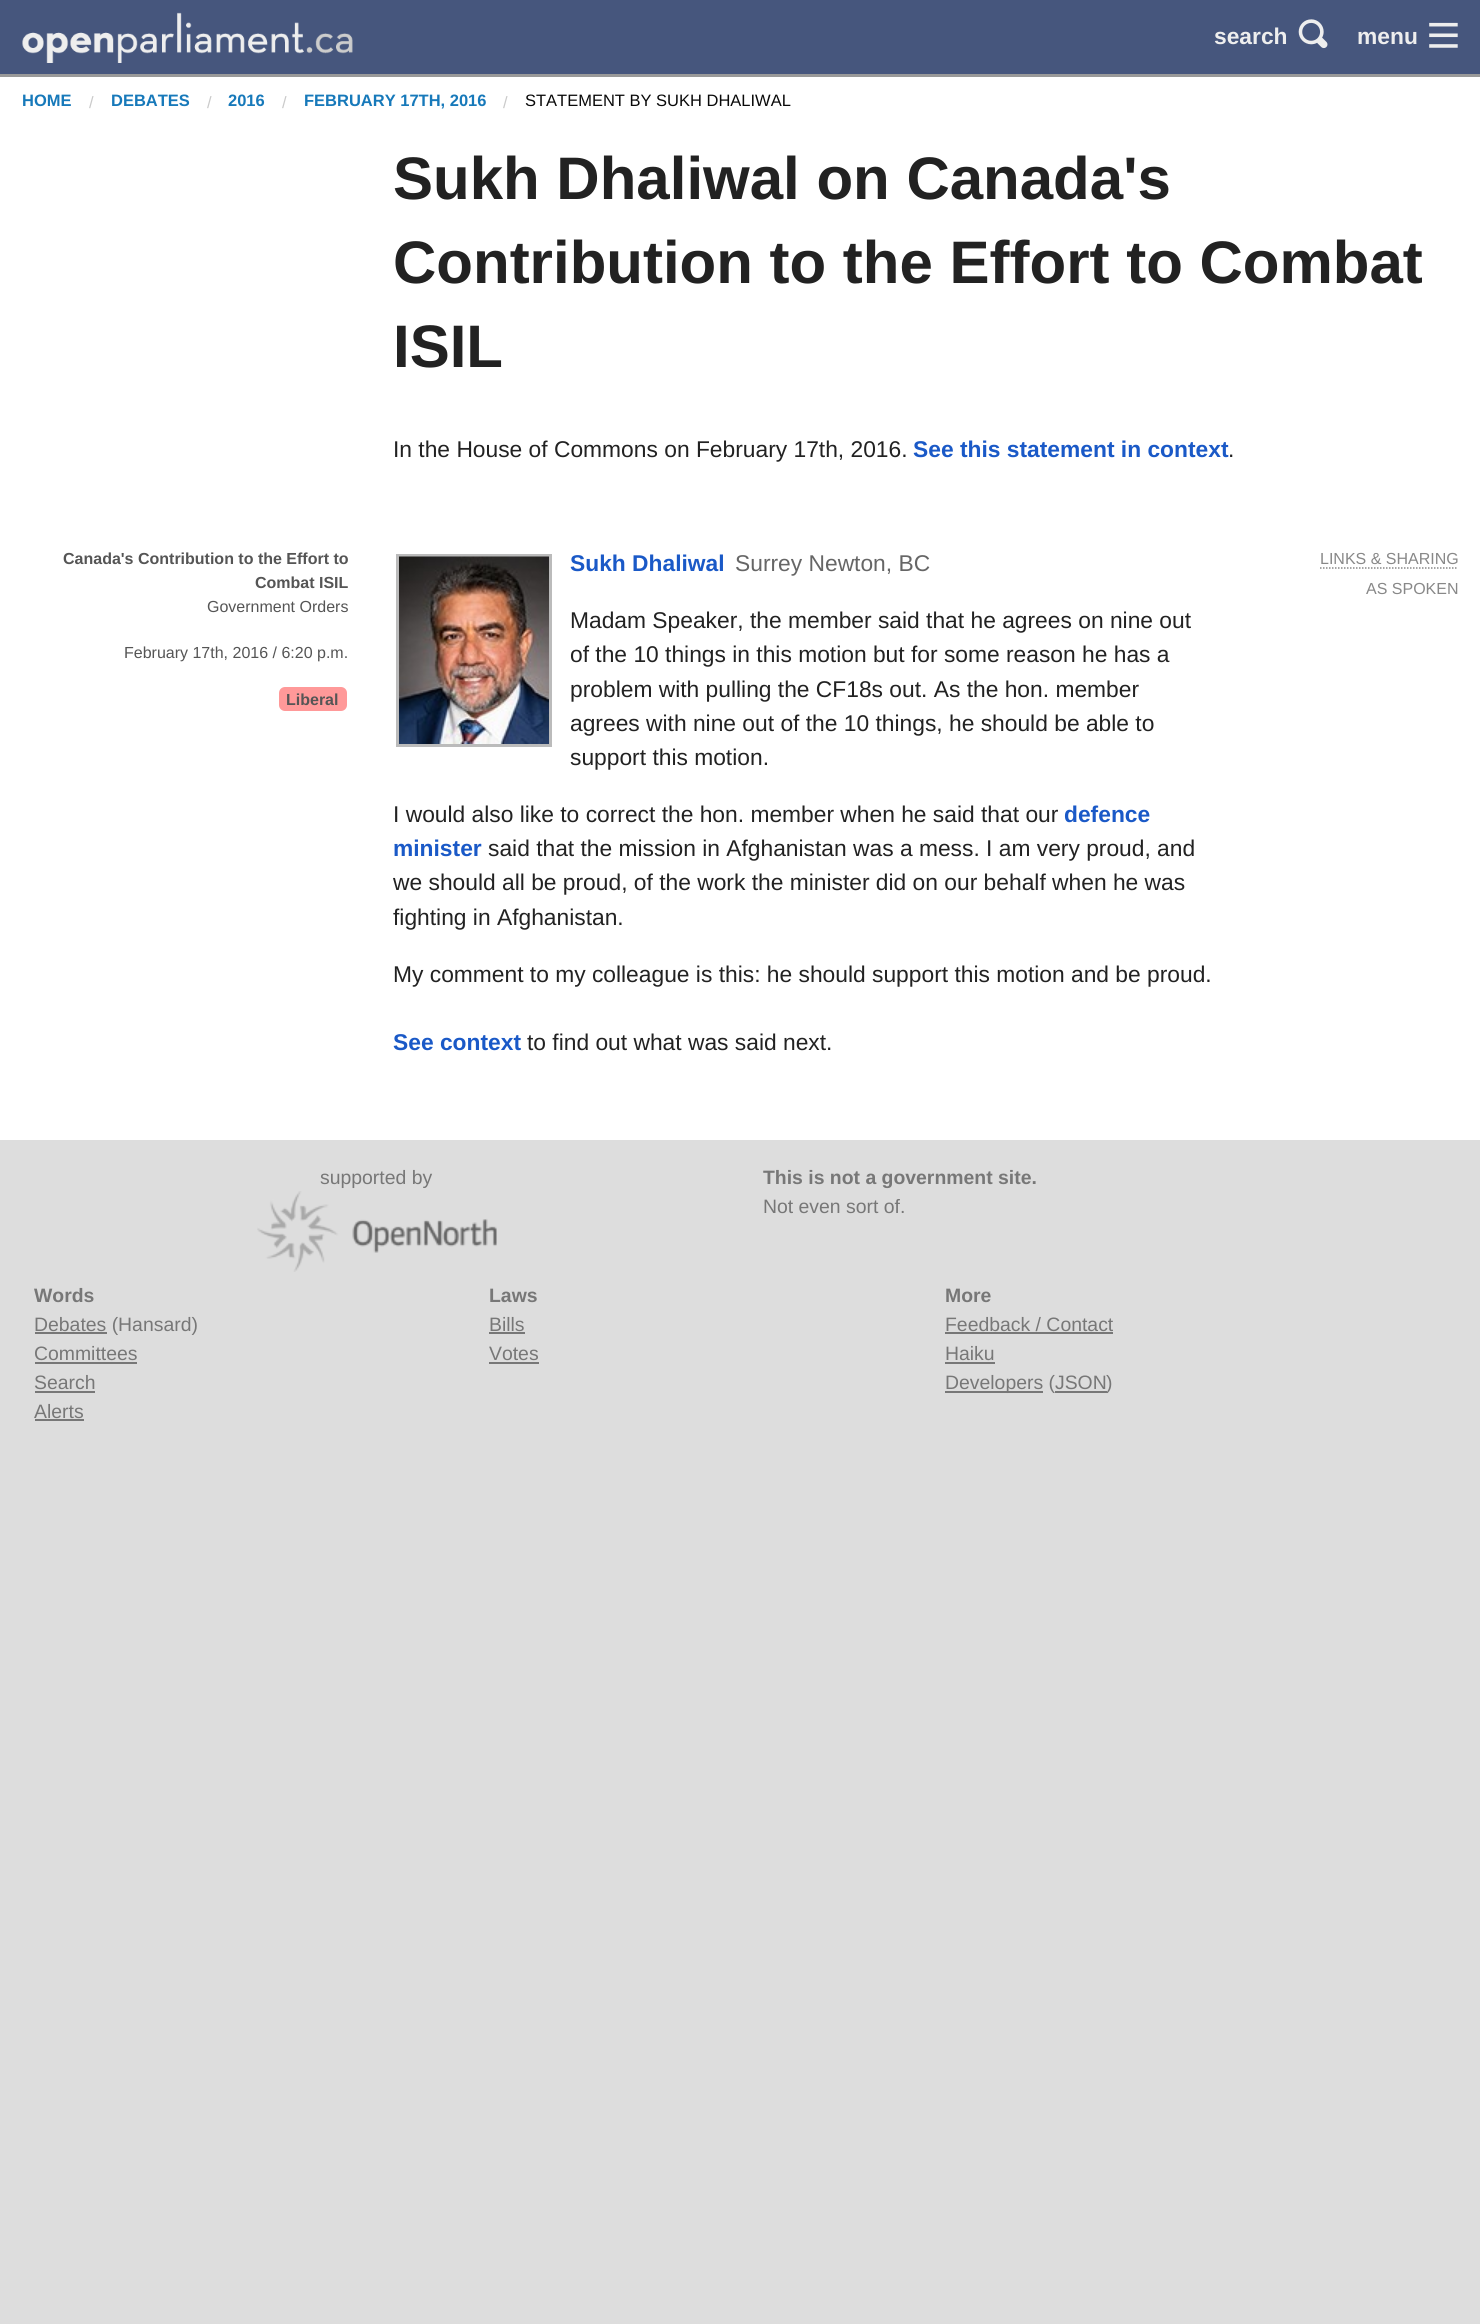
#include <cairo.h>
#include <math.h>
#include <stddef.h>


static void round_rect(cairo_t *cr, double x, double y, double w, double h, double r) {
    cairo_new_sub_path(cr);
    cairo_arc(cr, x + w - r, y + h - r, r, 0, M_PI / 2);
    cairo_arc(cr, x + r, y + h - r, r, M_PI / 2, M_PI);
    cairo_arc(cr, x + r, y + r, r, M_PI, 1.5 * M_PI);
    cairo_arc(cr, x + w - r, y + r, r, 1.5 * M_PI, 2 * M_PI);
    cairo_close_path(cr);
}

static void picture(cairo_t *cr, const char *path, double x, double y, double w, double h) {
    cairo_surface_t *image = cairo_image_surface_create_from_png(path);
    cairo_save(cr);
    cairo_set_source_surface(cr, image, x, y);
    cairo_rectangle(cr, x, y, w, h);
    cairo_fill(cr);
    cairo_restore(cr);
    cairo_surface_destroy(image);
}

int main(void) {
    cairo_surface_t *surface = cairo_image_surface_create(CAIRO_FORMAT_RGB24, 1480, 2324);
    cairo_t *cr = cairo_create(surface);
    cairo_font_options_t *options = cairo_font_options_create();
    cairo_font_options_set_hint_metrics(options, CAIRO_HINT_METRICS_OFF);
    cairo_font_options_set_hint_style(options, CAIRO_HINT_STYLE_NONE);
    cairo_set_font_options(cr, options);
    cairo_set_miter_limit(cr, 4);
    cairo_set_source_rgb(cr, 0.867, 0.867, 0.867);
    cairo_paint(cr);
    cairo_set_source_rgb(cr, 0.275, 0.337, 0.49);
    cairo_rectangle(cr, 0, 0, 1480, 74);
    cairo_fill(cr);
    picture(cr, "img1.png", 22, 12, 331, 51);
    cairo_select_font_face(cr, "Liberation Sans", CAIRO_FONT_SLANT_NORMAL, CAIRO_FONT_WEIGHT_BOLD);
    cairo_set_font_size(cr, 22.8);
    cairo_set_source_rgb(cr, 0.933, 0.933, 0.933);
    cairo_move_to(cr, 1214, 44);
    cairo_show_text(cr, "search");
    picture(cr, "img2.png", 1298, 19, 30, 30);
    cairo_move_to(cr, 1357, 44);
    cairo_show_text(cr, "menu");
    picture(cr, "img3.png", 1429, 22, 29, 26);
    cairo_set_source_rgb(cr, 1, 1, 1);
    cairo_rectangle(cr, 0, 77, 1480, 1063);
    cairo_fill(cr);
    cairo_set_source_rgb(cr, 0.6, 0.6, 0.6);
    cairo_rectangle(cr, 0, 74, 1480, 3);
    cairo_fill(cr);
    cairo_set_font_size(cr, 16.5);
    cairo_set_source_rgb(cr, 0.09, 0.475, 0.729);
    cairo_move_to(cr, 22, 106);
    cairo_show_text(cr, "HOME");
    cairo_select_font_face(cr, "Liberation Sans", CAIRO_FONT_SLANT_NORMAL, CAIRO_FONT_WEIGHT_NORMAL);
    cairo_set_source_rgb(cr, 0.792, 0.792, 0.792);
    cairo_move_to(cr, 89, 108);
    cairo_show_text(cr, "/");
    cairo_select_font_face(cr, "Liberation Sans", CAIRO_FONT_SLANT_NORMAL, CAIRO_FONT_WEIGHT_BOLD);
    cairo_set_source_rgb(cr, 0.09, 0.475, 0.729);
    cairo_move_to(cr, 111, 106);
    cairo_show_text(cr, "DEBATES");
    cairo_select_font_face(cr, "Liberation Sans", CAIRO_FONT_SLANT_NORMAL, CAIRO_FONT_WEIGHT_NORMAL);
    cairo_set_source_rgb(cr, 0.792, 0.792, 0.792);
    cairo_move_to(cr, 207, 108);
    cairo_show_text(cr, "/");
    cairo_select_font_face(cr, "Liberation Sans", CAIRO_FONT_SLANT_NORMAL, CAIRO_FONT_WEIGHT_BOLD);
    cairo_set_source_rgb(cr, 0.09, 0.475, 0.729);
    cairo_move_to(cr, 228, 106);
    cairo_show_text(cr, "2016");
    cairo_select_font_face(cr, "Liberation Sans", CAIRO_FONT_SLANT_NORMAL, CAIRO_FONT_WEIGHT_NORMAL);
    cairo_set_source_rgb(cr, 0.792, 0.792, 0.792);
    cairo_move_to(cr, 282, 108);
    cairo_show_text(cr, "/");
    cairo_select_font_face(cr, "Liberation Sans", CAIRO_FONT_SLANT_NORMAL, CAIRO_FONT_WEIGHT_BOLD);
    cairo_set_source_rgb(cr, 0.09, 0.475, 0.729);
    cairo_move_to(cr, 304, 106);
    cairo_show_text(cr, "FEBRUARY 17TH, 2016");
    cairo_select_font_face(cr, "Liberation Sans", CAIRO_FONT_SLANT_NORMAL, CAIRO_FONT_WEIGHT_NORMAL);
    cairo_set_source_rgb(cr, 0.792, 0.792, 0.792);
    cairo_move_to(cr, 503, 108);
    cairo_show_text(cr, "/");
    cairo_set_source_rgb(cr, 0.039, 0.039, 0.039);
    cairo_move_to(cr, 525, 106);
    cairo_show_text(cr, "STATEMENT BY SUKH DHALIWAL");
    cairo_select_font_face(cr, "Liberation Sans", CAIRO_FONT_SLANT_NORMAL, CAIRO_FONT_WEIGHT_BOLD);
    cairo_set_font_size(cr, 60);
    cairo_set_source_rgb(cr, 0.133, 0.133, 0.133);
    cairo_move_to(cr, 393, 199);
    cairo_show_text(cr, "Sukh Dhaliwal on Canada's");
    cairo_move_to(cr, 393, 283);
    cairo_show_text(cr, "Contribution to the Effort to Combat");
    cairo_move_to(cr, 393, 367);
    cairo_show_text(cr, "ISIL");
    cairo_select_font_face(cr, "Liberation Sans", CAIRO_FONT_SLANT_NORMAL, CAIRO_FONT_WEIGHT_NORMAL);
    cairo_set_font_size(cr, 22.8);
    cairo_move_to(cr, 393, 457);
    cairo_show_text(cr, "In the House of Commons on February 17th, 2016.");
    cairo_select_font_face(cr, "Liberation Sans", CAIRO_FONT_SLANT_NORMAL, CAIRO_FONT_WEIGHT_BOLD);
    cairo_set_source_rgb(cr, 0.102, 0.349, 0.78);
    cairo_move_to(cr, 913, 457);
    cairo_show_text(cr, "See this statement in context");
    cairo_select_font_face(cr, "Liberation Sans", CAIRO_FONT_SLANT_NORMAL, CAIRO_FONT_WEIGHT_NORMAL);
    cairo_set_source_rgb(cr, 0.133, 0.133, 0.133);
    cairo_move_to(cr, 1228, 457);
    cairo_show_text(cr, ".");
    cairo_select_font_face(cr, "Liberation Sans", CAIRO_FONT_SLANT_NORMAL, CAIRO_FONT_WEIGHT_BOLD);
    cairo_set_font_size(cr, 16);
    cairo_set_source_rgb(cr, 0.333, 0.333, 0.333);
    cairo_move_to(cr, 63, 564);
    cairo_show_text(cr, "Canada's Contribution to the Effort to");
    cairo_move_to(cr, 255, 588);
    cairo_show_text(cr, "Combat ISIL");
    cairo_select_font_face(cr, "Liberation Sans", CAIRO_FONT_SLANT_NORMAL, CAIRO_FONT_WEIGHT_NORMAL);
    cairo_move_to(cr, 207, 612);
    cairo_show_text(cr, "Government Orders");
    cairo_move_to(cr, 124, 658);
    cairo_show_text(cr, "February 17th, 2016 / 6:20 p.m.");
    cairo_set_source_rgb(cr, 1, 0.6, 0.6);
    round_rect(cr, 279, 687, 68, 24, 6);
    cairo_fill(cr);
    cairo_select_font_face(cr, "Liberation Sans", CAIRO_FONT_SLANT_NORMAL, CAIRO_FONT_WEIGHT_BOLD);
    cairo_set_source_rgb(cr, 0.333, 0.333, 0.333);
    cairo_move_to(cr, 286, 705);
    cairo_show_text(cr, "Liberal");
    cairo_rectangle(cr, 397.5, 555.5, 153, 190);
    cairo_set_source_rgb(cr, 0.733, 0.733, 0.733);
    cairo_set_line_width(cr, 3);
    cairo_stroke(cr);
    picture(cr, "img4.png", 399, 556, 150, 188);
    cairo_set_font_size(cr, 22.8);
    cairo_set_source_rgb(cr, 0.102, 0.349, 0.78);
    cairo_move_to(cr, 570, 571);
    cairo_show_text(cr, "Sukh Dhaliwal");
    cairo_select_font_face(cr, "Liberation Sans", CAIRO_FONT_SLANT_NORMAL, CAIRO_FONT_WEIGHT_NORMAL);
    cairo_set_source_rgb(cr, 0.4, 0.4, 0.4);
    cairo_move_to(cr, 735, 571);
    cairo_show_text(cr, "Surrey Newton, BC");
    cairo_set_source_rgb(cr, 0.133, 0.133, 0.133);
    cairo_move_to(cr, 570, 628);
    cairo_show_text(cr, "Madam Speaker, the member said that he agrees on nine out");
    cairo_move_to(cr, 570, 662);
    cairo_show_text(cr, "of the 10 things in this motion but for some reason he has a");
    cairo_move_to(cr, 570, 697);
    cairo_show_text(cr, "problem with pulling the CF18s out. As the hon. member");
    cairo_move_to(cr, 570, 731);
    cairo_show_text(cr, "agrees with nine out of the 10 things, he should be able to");
    cairo_move_to(cr, 570, 765);
    cairo_show_text(cr, "support this motion.");
    cairo_move_to(cr, 393, 822);
    cairo_show_text(cr, "I would also like to correct the hon. member when he said that our");
    cairo_select_font_face(cr, "Liberation Sans", CAIRO_FONT_SLANT_NORMAL, CAIRO_FONT_WEIGHT_BOLD);
    cairo_set_source_rgb(cr, 0.102, 0.349, 0.78);
    cairo_move_to(cr, 1064, 822);
    cairo_show_text(cr, "defence");
    cairo_move_to(cr, 393, 856);
    cairo_show_text(cr, "minister");
    cairo_select_font_face(cr, "Liberation Sans", CAIRO_FONT_SLANT_NORMAL, CAIRO_FONT_WEIGHT_NORMAL);
    cairo_set_source_rgb(cr, 0.133, 0.133, 0.133);
    cairo_move_to(cr, 488, 856);
    cairo_show_text(cr, "said that the mission in Afghanistan was a mess. I am very proud, and");
    cairo_move_to(cr, 393, 890);
    cairo_show_text(cr, "we should all be proud, of the work the minister did on our behalf when he was");
    cairo_move_to(cr, 393, 925);
    cairo_show_text(cr, "fighting in Afghanistan.");
    cairo_move_to(cr, 393, 982);
    cairo_show_text(cr, "My comment to my colleague is this: he should support this motion and be proud.");
    cairo_set_font_size(cr, 16);
    cairo_set_source_rgb(cr, 0.533, 0.533, 0.533);
    cairo_move_to(cr, 1320, 564);
    cairo_show_text(cr, "LINKS & SHARING");
    cairo_new_path(cr);
    cairo_move_to(cr, 1320, 568);
    cairo_line_to(cr, 1458, 568);
    cairo_set_line_width(cr, 1.5);
    cairo_set_dash(cr, (double[]){1.5, 1.5}, 2, 0);
    cairo_stroke(cr);
    cairo_move_to(cr, 1366, 594);
    cairo_show_text(cr, "AS SPOKEN");
    cairo_select_font_face(cr, "Liberation Sans", CAIRO_FONT_SLANT_NORMAL, CAIRO_FONT_WEIGHT_BOLD);
    cairo_set_font_size(cr, 22.8);
    cairo_set_source_rgb(cr, 0.102, 0.349, 0.78);
    cairo_move_to(cr, 393, 1050);
    cairo_show_text(cr, "See context");
    cairo_select_font_face(cr, "Liberation Sans", CAIRO_FONT_SLANT_NORMAL, CAIRO_FONT_WEIGHT_NORMAL);
    cairo_set_source_rgb(cr, 0.133, 0.133, 0.133);
    cairo_move_to(cr, 527, 1050);
    cairo_show_text(cr, "to find out what was said next.");
    cairo_set_font_size(cr, 19.4);
    cairo_set_source_rgb(cr, 0.467, 0.467, 0.467);
    cairo_move_to(cr, 320, 1184);
    cairo_show_text(cr, "supported by");
    picture(cr, "img5.png", 257, 1191, 240, 81);
    cairo_select_font_face(cr, "Liberation Sans", CAIRO_FONT_SLANT_NORMAL, CAIRO_FONT_WEIGHT_BOLD);
    cairo_move_to(cr, 763, 1184);
    cairo_show_text(cr, "This is not a government site.");
    cairo_select_font_face(cr, "Liberation Sans", CAIRO_FONT_SLANT_NORMAL, CAIRO_FONT_WEIGHT_NORMAL);
    cairo_move_to(cr, 763, 1213);
    cairo_show_text(cr, "Not even sort of.");
    cairo_select_font_face(cr, "Liberation Sans", CAIRO_FONT_SLANT_NORMAL, CAIRO_FONT_WEIGHT_BOLD);
    cairo_move_to(cr, 34, 1302);
    cairo_show_text(cr, "Words");
    cairo_rectangle(cr, 35, 1332, 72, 2);
    cairo_fill(cr);
    cairo_select_font_face(cr, "Liberation Sans", CAIRO_FONT_SLANT_NORMAL, CAIRO_FONT_WEIGHT_NORMAL);
    cairo_move_to(cr, 34, 1331);
    cairo_show_text(cr, "Debates (Hansard)");
    cairo_move_to(cr, 34, 1360);
    cairo_show_text(cr, "Committees");
    cairo_rectangle(cr, 35, 1362, 102, 2);
    cairo_fill(cr);
    cairo_move_to(cr, 34, 1389);
    cairo_show_text(cr, "Search");
    cairo_rectangle(cr, 35, 1391, 60, 2);
    cairo_fill(cr);
    cairo_move_to(cr, 34, 1418);
    cairo_show_text(cr, "Alerts");
    cairo_rectangle(cr, 35, 1419, 49, 2);
    cairo_fill(cr);
    cairo_select_font_face(cr, "Liberation Sans", CAIRO_FONT_SLANT_NORMAL, CAIRO_FONT_WEIGHT_BOLD);
    cairo_move_to(cr, 489, 1302);
    cairo_show_text(cr, "Laws");
    cairo_select_font_face(cr, "Liberation Sans", CAIRO_FONT_SLANT_NORMAL, CAIRO_FONT_WEIGHT_NORMAL);
    cairo_move_to(cr, 489, 1331);
    cairo_show_text(cr, "Bills");
    cairo_rectangle(cr, 489, 1332, 36, 2);
    cairo_fill(cr);
    cairo_move_to(cr, 489, 1360);
    cairo_show_text(cr, "Votes");
    cairo_rectangle(cr, 489, 1362, 50, 2);
    cairo_fill(cr);
    cairo_select_font_face(cr, "Liberation Sans", CAIRO_FONT_SLANT_NORMAL, CAIRO_FONT_WEIGHT_BOLD);
    cairo_move_to(cr, 945, 1302);
    cairo_show_text(cr, "More");
    cairo_select_font_face(cr, "Liberation Sans", CAIRO_FONT_SLANT_NORMAL, CAIRO_FONT_WEIGHT_NORMAL);
    cairo_move_to(cr, 945, 1331);
    cairo_show_text(cr, "Feedback / Contact");
    cairo_rectangle(cr, 945, 1332, 168, 2);
    cairo_fill(cr);
    cairo_move_to(cr, 945, 1360);
    cairo_show_text(cr, "Haiku");
    cairo_rectangle(cr, 945, 1362, 50, 2);
    cairo_fill(cr);
    cairo_rectangle(cr, 945, 1391, 98, 2);
    cairo_fill(cr);
    cairo_move_to(cr, 945, 1389);
    cairo_show_text(cr, "Developers (JSON");
    cairo_rectangle(cr, 1055, 1391, 52, 2);
    cairo_fill(cr);
    cairo_move_to(cr, 1106, 1389);
    cairo_show_text(cr, ")");
    cairo_surface_write_to_png(surface, "page.png");
    cairo_font_options_destroy(options);
    cairo_destroy(cr);
    cairo_surface_destroy(surface);
    return 0;
}
